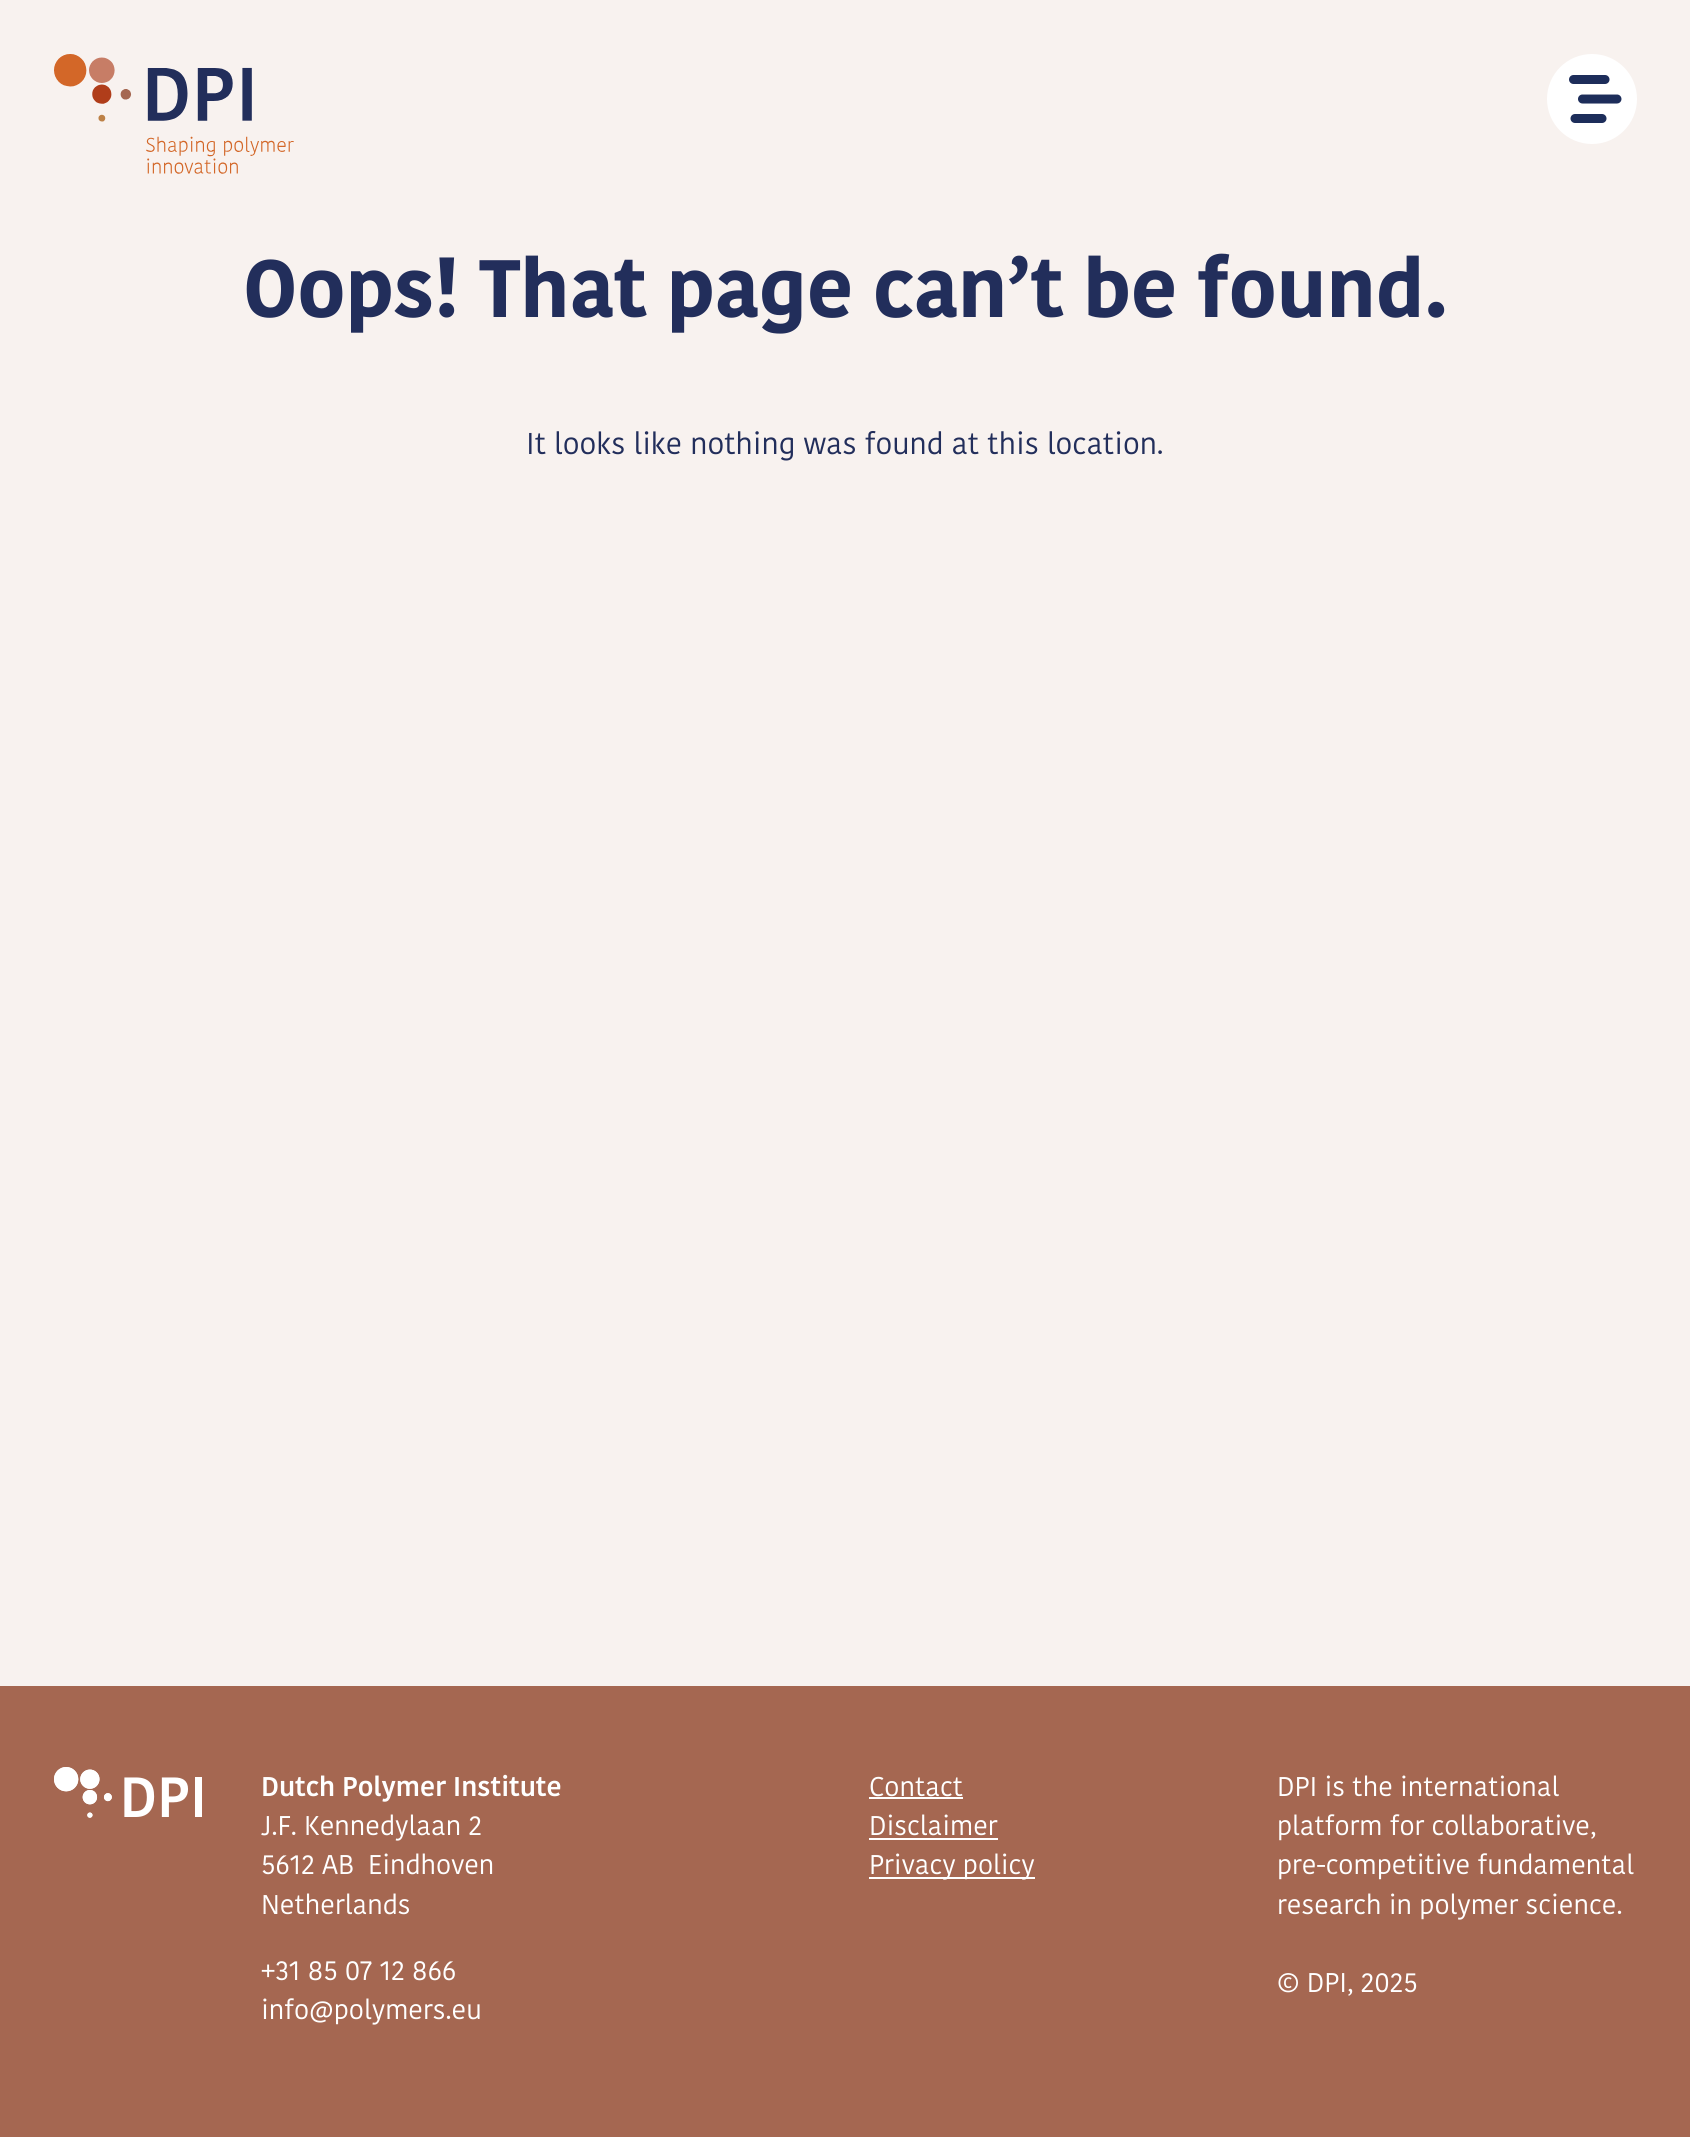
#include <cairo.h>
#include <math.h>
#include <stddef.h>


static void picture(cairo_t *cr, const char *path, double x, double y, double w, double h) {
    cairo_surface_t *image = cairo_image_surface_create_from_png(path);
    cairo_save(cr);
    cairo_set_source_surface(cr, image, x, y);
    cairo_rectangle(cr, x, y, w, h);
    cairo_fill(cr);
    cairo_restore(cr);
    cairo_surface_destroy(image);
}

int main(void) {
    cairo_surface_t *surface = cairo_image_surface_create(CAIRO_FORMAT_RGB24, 1690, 2137);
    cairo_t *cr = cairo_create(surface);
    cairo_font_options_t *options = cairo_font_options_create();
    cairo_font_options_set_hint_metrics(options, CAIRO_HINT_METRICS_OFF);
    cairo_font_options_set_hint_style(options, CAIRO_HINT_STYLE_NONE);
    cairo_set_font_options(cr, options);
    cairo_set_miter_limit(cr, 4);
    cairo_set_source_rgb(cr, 0.969, 0.949, 0.937);
    cairo_paint(cr);
    picture(cr, "img1.png", 54, 54, 240, 120);
    cairo_set_source_rgb(cr, 1, 1, 1);
    cairo_arc(cr, 1592, 99, 45, 0, 2 * M_PI);
    cairo_fill(cr);
    picture(cr, "img2.png", 1569, 75, 53, 48);
    cairo_select_font_face(cr, "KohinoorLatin", CAIRO_FONT_SLANT_NORMAL, CAIRO_FONT_WEIGHT_BOLD);
    cairo_set_font_size(cr, 81);
    cairo_set_source_rgb(cr, 0.133, 0.18, 0.357);
    cairo_move_to(cr, 243, 317);
    cairo_show_text(cr, "Oops! That page can’t be found.");
    cairo_select_font_face(cr, "KohinoorLatin", CAIRO_FONT_SLANT_NORMAL, CAIRO_FONT_WEIGHT_NORMAL);
    cairo_set_font_size(cr, 30);
    cairo_move_to(cr, 526, 454);
    cairo_show_text(cr, "It looks like nothing was found at this location.");
    cairo_set_source_rgb(cr, 0.647, 0.404, 0.318);
    cairo_rectangle(cr, 0, 1686, 1690, 451);
    cairo_fill(cr);
    picture(cr, "img3.png", 54, 1767, 148, 51);
    cairo_select_font_face(cr, "KohinoorLatin Medium", CAIRO_FONT_SLANT_NORMAL, CAIRO_FONT_WEIGHT_NORMAL);
    cairo_set_font_size(cr, 27);
    cairo_set_source_rgb(cr, 1, 1, 1);
    cairo_move_to(cr, 261, 1796);
    cairo_show_text(cr, "Dutch Polymer Institute");
    cairo_select_font_face(cr, "KohinoorLatin", CAIRO_FONT_SLANT_NORMAL, CAIRO_FONT_WEIGHT_NORMAL);
    cairo_move_to(cr, 261, 1835);
    cairo_show_text(cr, "J.F. Kennedylaan 2");
    cairo_move_to(cr, 261, 1874);
    cairo_show_text(cr, "5612 AB");
    cairo_move_to(cr, 368, 1874);
    cairo_show_text(cr, "Eindhoven");
    cairo_move_to(cr, 261, 1914);
    cairo_show_text(cr, "Netherlands");
    cairo_move_to(cr, 261, 1980);
    cairo_show_text(cr, "+31 85 07 12 866");
    cairo_move_to(cr, 261, 2019);
    cairo_show_text(cr, "info@polymers.eu");
    cairo_move_to(cr, 869, 1796);
    cairo_show_text(cr, "Contact");
    cairo_rectangle(cr, 869, 1797, 94, 2);
    cairo_fill(cr);
    cairo_move_to(cr, 869, 1835);
    cairo_show_text(cr, "Disclaimer");
    cairo_rectangle(cr, 869, 1838, 129, 2);
    cairo_fill(cr);
    cairo_rectangle(cr, 869, 1877, 166, 2);
    cairo_fill(cr);
    cairo_move_to(cr, 869, 1874);
    cairo_show_text(cr, "Privacy policy");
    cairo_move_to(cr, 1277, 1796);
    cairo_show_text(cr, "DPI is the international");
    cairo_move_to(cr, 1277, 1835);
    cairo_show_text(cr, "platform for collaborative,");
    cairo_move_to(cr, 1277, 1874);
    cairo_show_text(cr, "pre-competitive fundamental");
    cairo_move_to(cr, 1277, 1914);
    cairo_show_text(cr, "research in polymer science.");
    cairo_move_to(cr, 1277, 1992);
    cairo_show_text(cr, "© DPI, 2025");
    cairo_surface_write_to_png(surface, "page.png");
    cairo_font_options_destroy(options);
    cairo_destroy(cr);
    cairo_surface_destroy(surface);
    return 0;
}
